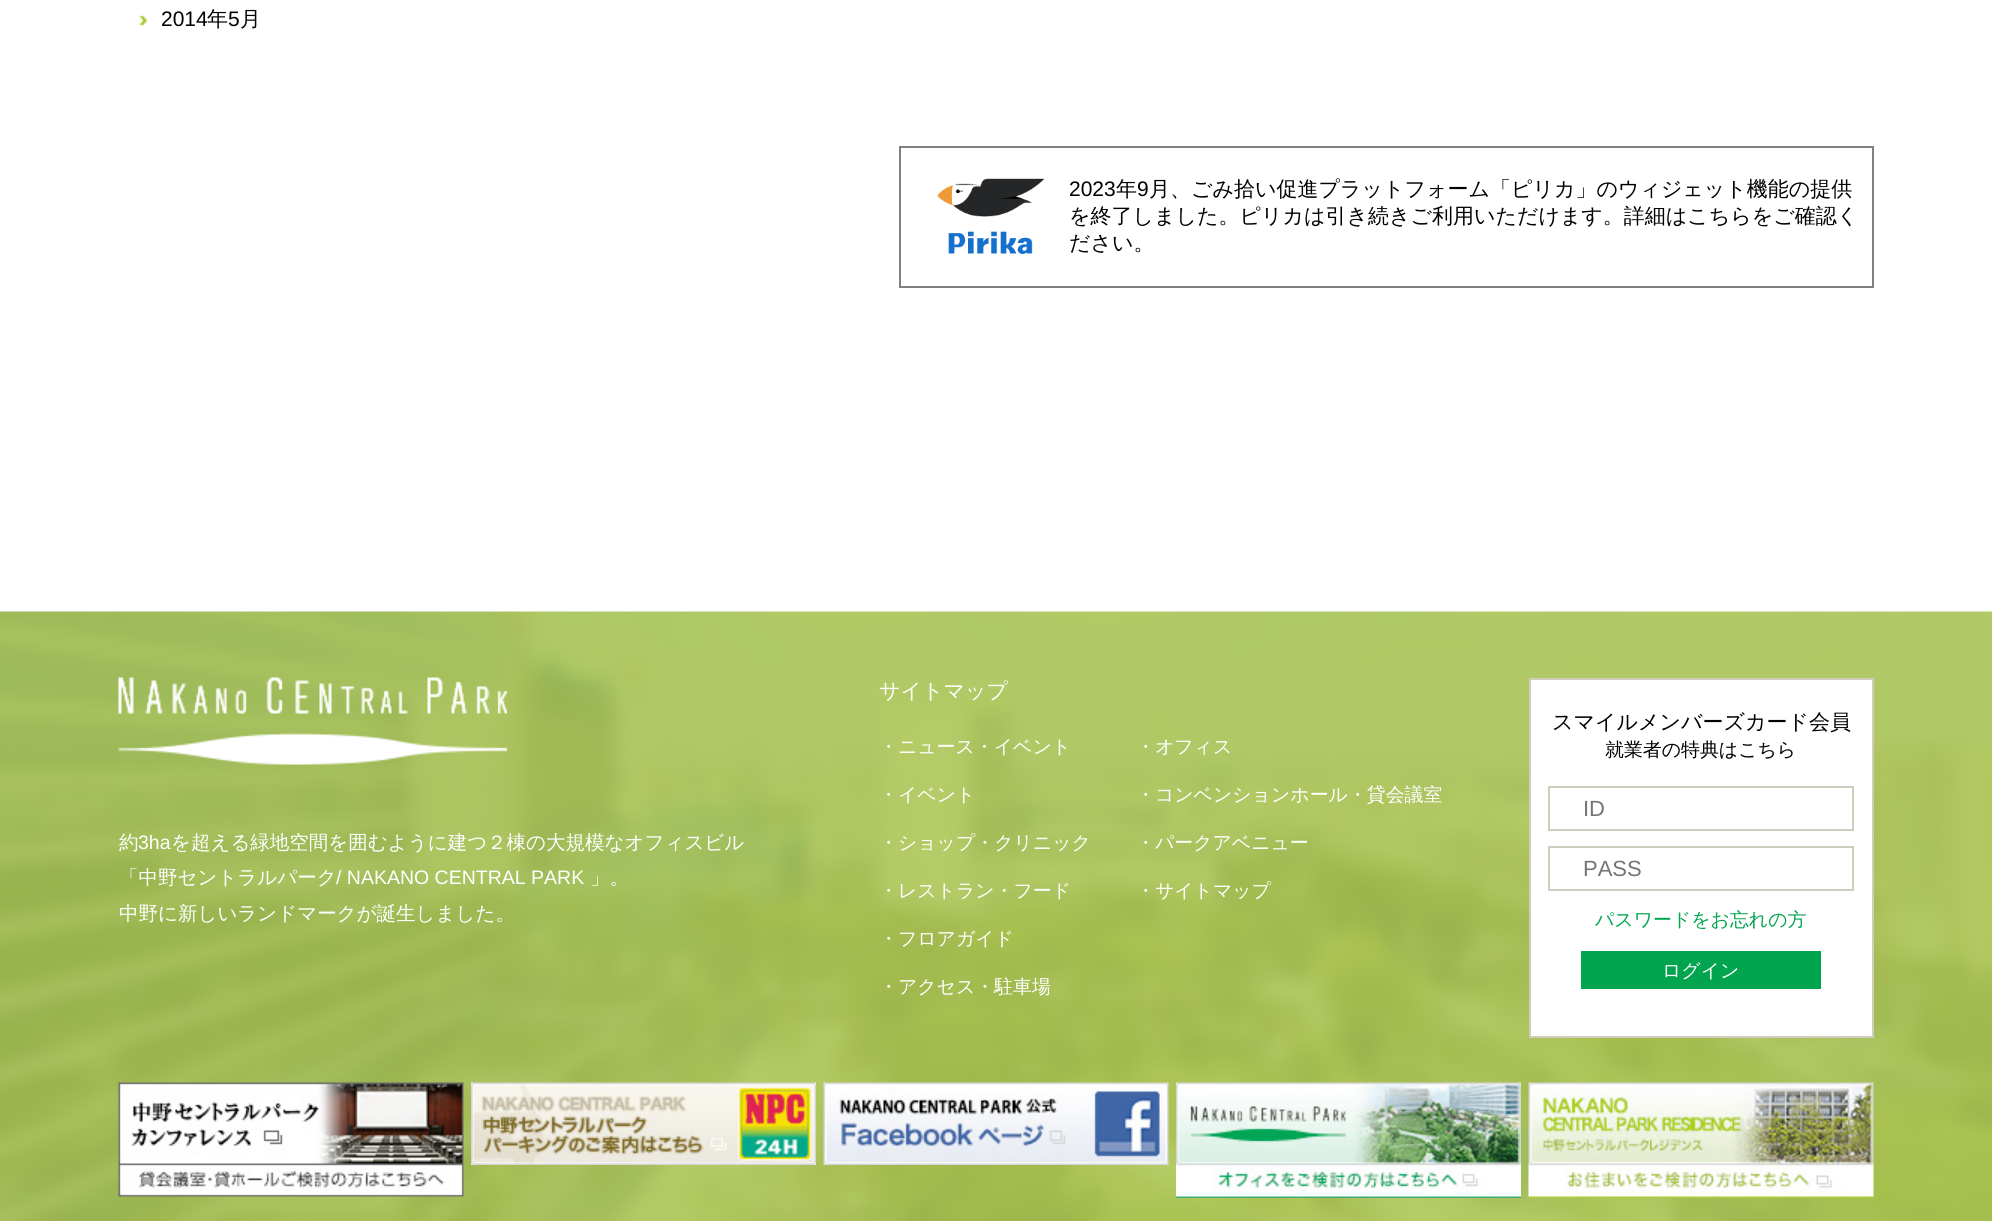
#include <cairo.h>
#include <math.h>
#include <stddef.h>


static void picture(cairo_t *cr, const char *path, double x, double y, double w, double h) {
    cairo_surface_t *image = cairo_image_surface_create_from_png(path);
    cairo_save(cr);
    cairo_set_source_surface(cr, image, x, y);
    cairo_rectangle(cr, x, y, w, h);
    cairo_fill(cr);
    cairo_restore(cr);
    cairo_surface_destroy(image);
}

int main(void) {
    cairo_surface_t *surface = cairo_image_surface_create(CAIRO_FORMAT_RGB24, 1992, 1221);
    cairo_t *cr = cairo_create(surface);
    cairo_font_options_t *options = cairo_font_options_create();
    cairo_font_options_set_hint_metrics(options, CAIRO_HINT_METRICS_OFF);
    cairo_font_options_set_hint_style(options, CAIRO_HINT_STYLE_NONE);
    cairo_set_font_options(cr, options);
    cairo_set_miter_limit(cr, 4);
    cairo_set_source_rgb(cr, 1, 1, 1);
    cairo_paint(cr);
    picture(cr, "img1.png", 139, 15, 8, 11);
    cairo_select_font_face(cr, "Liberation Sans", CAIRO_FONT_SLANT_NORMAL, CAIRO_FONT_WEIGHT_NORMAL);
    cairo_set_font_size(cr, 21);
    cairo_set_source_rgb(cr, 0, 0, 0);
    cairo_move_to(cr, 161, 26);
    cairo_show_text(cr, "2014");
    cairo_select_font_face(cr, "WenQuanYi Zen Hei Medium", CAIRO_FONT_SLANT_NORMAL, CAIRO_FONT_WEIGHT_NORMAL);
    cairo_move_to(cr, 207, 26);
    cairo_show_text(cr, "年");
    cairo_select_font_face(cr, "Liberation Sans", CAIRO_FONT_SLANT_NORMAL, CAIRO_FONT_WEIGHT_NORMAL);
    cairo_move_to(cr, 228, 26);
    cairo_show_text(cr, "5");
    cairo_select_font_face(cr, "WenQuanYi Zen Hei Medium", CAIRO_FONT_SLANT_NORMAL, CAIRO_FONT_WEIGHT_NORMAL);
    cairo_move_to(cr, 240, 26);
    cairo_show_text(cr, "月");
    cairo_rectangle(cr, 900, 147, 973, 140);
    cairo_set_source_rgb(cr, 0.502, 0.502, 0.502);
    cairo_stroke(cr);
    picture(cr, "img2.png", 937, 178, 108, 76);
    cairo_select_font_face(cr, "Liberation Sans", CAIRO_FONT_SLANT_NORMAL, CAIRO_FONT_WEIGHT_NORMAL);
    cairo_set_source_rgb(cr, 0, 0, 0);
    cairo_move_to(cr, 1069, 196);
    cairo_show_text(cr, "2023");
    cairo_select_font_face(cr, "WenQuanYi Zen Hei Medium", CAIRO_FONT_SLANT_NORMAL, CAIRO_FONT_WEIGHT_NORMAL);
    cairo_move_to(cr, 1116, 196);
    cairo_show_text(cr, "年");
    cairo_select_font_face(cr, "Liberation Sans", CAIRO_FONT_SLANT_NORMAL, CAIRO_FONT_WEIGHT_NORMAL);
    cairo_move_to(cr, 1137, 196);
    cairo_show_text(cr, "9");
    cairo_select_font_face(cr, "WenQuanYi Zen Hei Medium", CAIRO_FONT_SLANT_NORMAL, CAIRO_FONT_WEIGHT_NORMAL);
    cairo_move_to(cr, 1149, 196);
    cairo_show_text(cr, "月、ごみ拾い促進プラットフォーム「ピリカ」のウィジェット機能の提供");
    cairo_move_to(cr, 1069, 223);
    cairo_show_text(cr, "を終了しました。ピリカは引き続きご利用いただけます。詳細はこちらをご確認く");
    cairo_move_to(cr, 1069, 250);
    cairo_show_text(cr, "ださい。");
    picture(cr, "img3.png", 0, 611, 1992, 610);
    picture(cr, "img4.png", 118, 677, 389, 88);
    cairo_set_font_size(cr, 19.5);
    cairo_set_source_rgb(cr, 1, 1, 1);
    cairo_move_to(cr, 119, 849);
    cairo_show_text(cr, "約");
    cairo_select_font_face(cr, "Liberation Sans", CAIRO_FONT_SLANT_NORMAL, CAIRO_FONT_WEIGHT_NORMAL);
    cairo_move_to(cr, 138, 849);
    cairo_show_text(cr, "3ha");
    cairo_select_font_face(cr, "WenQuanYi Zen Hei Medium", CAIRO_FONT_SLANT_NORMAL, CAIRO_FONT_WEIGHT_NORMAL);
    cairo_move_to(cr, 171, 849);
    cairo_show_text(cr, "を超える緑地空間を囲むように建つ２棟の大規模なオフィスビル");
    cairo_move_to(cr, 119, 884);
    cairo_show_text(cr, "「中野セントラルパーク");
    cairo_select_font_face(cr, "Liberation Sans", CAIRO_FONT_SLANT_NORMAL, CAIRO_FONT_WEIGHT_NORMAL);
    cairo_move_to(cr, 336, 884);
    cairo_show_text(cr, "/ NAKANO CENTRAL PARK");
    cairo_select_font_face(cr, "WenQuanYi Zen Hei Medium", CAIRO_FONT_SLANT_NORMAL, CAIRO_FONT_WEIGHT_NORMAL);
    cairo_move_to(cr, 590, 884);
    cairo_show_text(cr, "」。");
    cairo_move_to(cr, 119, 920);
    cairo_show_text(cr, "中野に新しいランドマークが誕生しました。");
    cairo_set_font_size(cr, 21);
    cairo_move_to(cr, 879, 698);
    cairo_show_text(cr, "サイトマップ");
    cairo_set_font_size(cr, 18.9);
    cairo_move_to(cr, 879, 753);
    cairo_show_text(cr, "・ニュース・イベント");
    cairo_move_to(cr, 879, 801);
    cairo_show_text(cr, "・イベント");
    cairo_move_to(cr, 879, 849);
    cairo_show_text(cr, "・ショップ・クリニック");
    cairo_move_to(cr, 879, 897);
    cairo_show_text(cr, "・レストラン・フード");
    cairo_move_to(cr, 879, 945);
    cairo_show_text(cr, "・フロアガイド");
    cairo_move_to(cr, 879, 993);
    cairo_show_text(cr, "・アクセス・駐車場");
    cairo_move_to(cr, 1136, 753);
    cairo_show_text(cr, "・オフィス");
    cairo_move_to(cr, 1136, 801);
    cairo_show_text(cr, "・コンベンションホール・貸会議室");
    cairo_move_to(cr, 1136, 849);
    cairo_show_text(cr, "・パークアベニュー");
    cairo_move_to(cr, 1136, 897);
    cairo_show_text(cr, "・サイトマップ");
    cairo_rectangle(cr, 1530, 679, 343, 358);
    cairo_fill_preserve(cr);
    cairo_set_source_rgb(cr, 0.816, 0.804, 0.737);
    cairo_stroke(cr);
    cairo_set_font_size(cr, 21);
    cairo_set_source_rgb(cr, 0, 0, 0);
    cairo_move_to(cr, 1552, 729);
    cairo_show_text(cr, "スマイルメンバーズカード会員");
    cairo_set_font_size(cr, 18.9);
    cairo_move_to(cr, 1605, 756);
    cairo_show_text(cr, "就業者の特典はこちら");
    cairo_rectangle(cr, 1549, 787, 304, 43);
    cairo_set_source_rgb(cr, 0.816, 0.804, 0.737);
    cairo_stroke(cr);
    cairo_select_font_face(cr, "Liberation Sans", CAIRO_FONT_SLANT_NORMAL, CAIRO_FONT_WEIGHT_NORMAL);
    cairo_set_font_size(cr, 22);
    cairo_set_source_rgb(cr, 0.459, 0.459, 0.459);
    cairo_move_to(cr, 1583, 816);
    cairo_show_text(cr, "ID");
    cairo_rectangle(cr, 1549, 847, 304, 43);
    cairo_set_source_rgb(cr, 0.816, 0.804, 0.737);
    cairo_stroke(cr);
    cairo_set_source_rgb(cr, 0.459, 0.459, 0.459);
    cairo_move_to(cr, 1583, 876);
    cairo_show_text(cr, "PASS");
    cairo_select_font_face(cr, "WenQuanYi Zen Hei Medium", CAIRO_FONT_SLANT_NORMAL, CAIRO_FONT_WEIGHT_NORMAL);
    cairo_set_font_size(cr, 18.9);
    cairo_set_source_rgb(cr, 0.004, 0.647, 0.31);
    cairo_move_to(cr, 1595, 926);
    cairo_show_text(cr, "パスワードをお忘れの方");
    cairo_rectangle(cr, 1581, 951, 240, 38);
    cairo_fill(cr);
    cairo_set_source_rgb(cr, 1, 1, 1);
    cairo_move_to(cr, 1662, 977);
    cairo_show_text(cr, "ログイン");
    picture(cr, "img5.png", 118, 1082, 346, 115);
    picture(cr, "img6.png", 471, 1082, 345, 83);
    picture(cr, "img7.png", 823, 1082, 346, 83);
    picture(cr, "img8.png", 1176, 1082, 345, 116);
    picture(cr, "img9.png", 1528, 1082, 346, 116);
    cairo_surface_write_to_png(surface, "page.png");
    cairo_font_options_destroy(options);
    cairo_destroy(cr);
    cairo_surface_destroy(surface);
    return 0;
}
